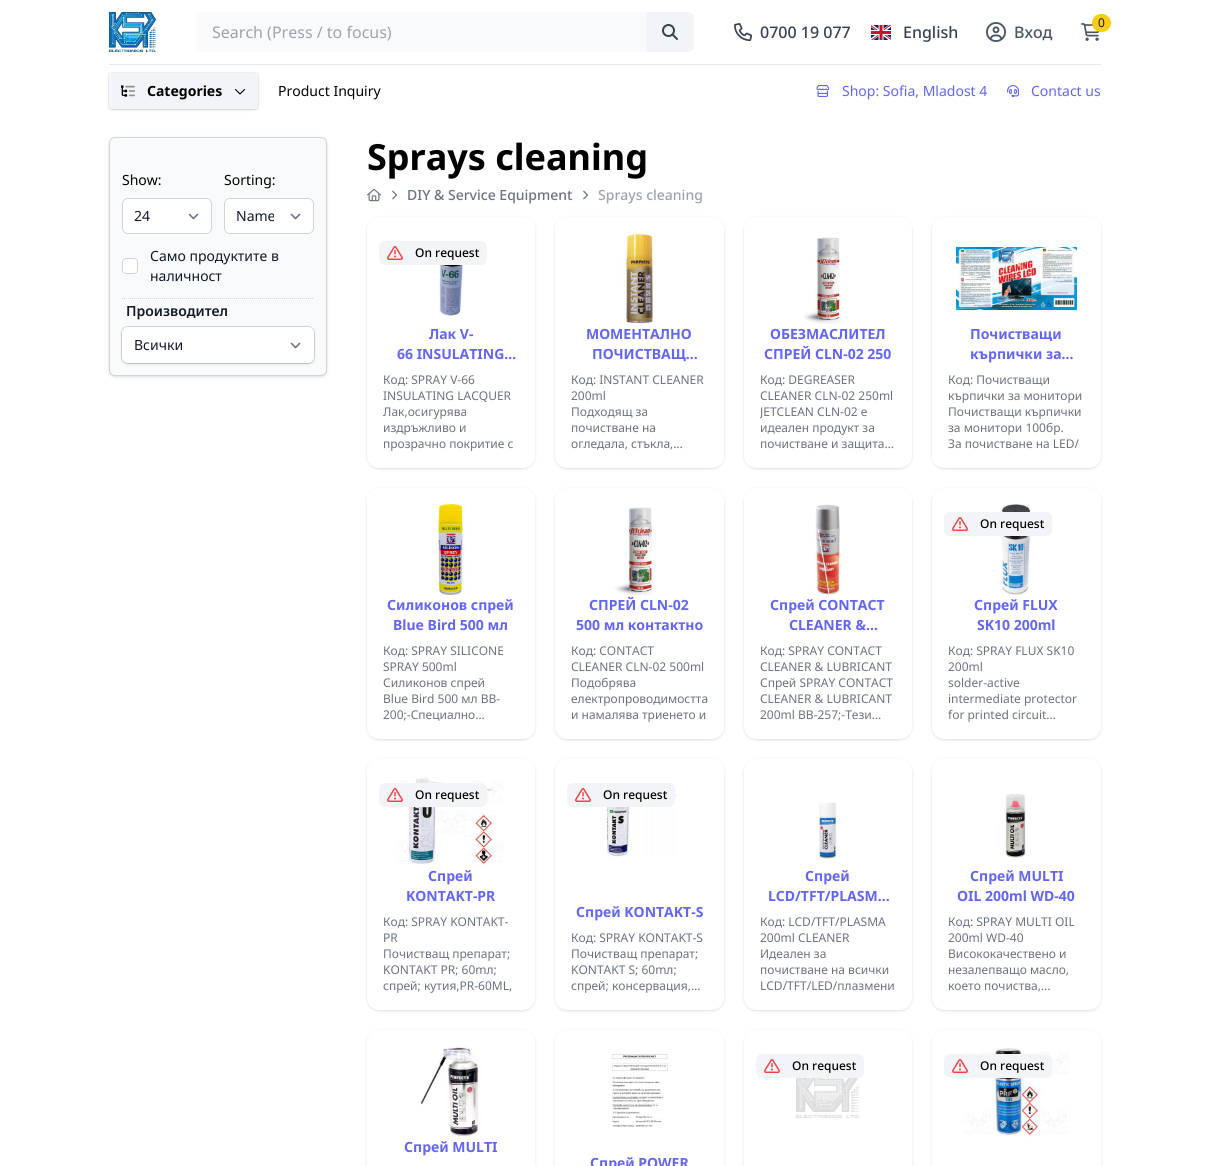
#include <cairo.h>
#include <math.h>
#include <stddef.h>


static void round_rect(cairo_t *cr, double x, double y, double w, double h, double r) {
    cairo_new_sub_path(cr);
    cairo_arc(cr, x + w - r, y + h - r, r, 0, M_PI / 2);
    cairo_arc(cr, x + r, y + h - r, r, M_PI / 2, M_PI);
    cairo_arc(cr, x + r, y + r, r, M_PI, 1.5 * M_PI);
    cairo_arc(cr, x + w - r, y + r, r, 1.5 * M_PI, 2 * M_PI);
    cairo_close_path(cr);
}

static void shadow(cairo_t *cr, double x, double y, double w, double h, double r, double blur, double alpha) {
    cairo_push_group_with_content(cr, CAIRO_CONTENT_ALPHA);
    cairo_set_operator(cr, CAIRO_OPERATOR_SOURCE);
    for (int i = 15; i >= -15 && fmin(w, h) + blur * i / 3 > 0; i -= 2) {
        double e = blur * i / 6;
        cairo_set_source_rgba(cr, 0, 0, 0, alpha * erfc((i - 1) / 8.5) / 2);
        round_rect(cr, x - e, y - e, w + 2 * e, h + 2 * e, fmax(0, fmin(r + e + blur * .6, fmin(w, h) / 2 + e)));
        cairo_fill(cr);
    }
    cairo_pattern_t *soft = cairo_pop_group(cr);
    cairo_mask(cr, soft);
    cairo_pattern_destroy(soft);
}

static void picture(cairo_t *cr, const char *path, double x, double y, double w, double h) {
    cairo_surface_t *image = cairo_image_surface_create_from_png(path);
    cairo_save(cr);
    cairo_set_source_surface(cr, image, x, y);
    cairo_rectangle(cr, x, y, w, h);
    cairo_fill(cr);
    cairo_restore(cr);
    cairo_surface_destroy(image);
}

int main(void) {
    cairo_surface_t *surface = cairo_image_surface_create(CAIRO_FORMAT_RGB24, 1209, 1166);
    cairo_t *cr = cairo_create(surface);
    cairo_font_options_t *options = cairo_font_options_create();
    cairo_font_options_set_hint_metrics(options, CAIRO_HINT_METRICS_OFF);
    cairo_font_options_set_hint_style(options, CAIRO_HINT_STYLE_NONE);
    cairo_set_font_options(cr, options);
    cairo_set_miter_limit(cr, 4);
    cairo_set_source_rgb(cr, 1, 1, 1);
    cairo_paint(cr);
    cairo_set_source_rgb(cr, 0.898, 0.906, 0.922);
    cairo_rectangle(cr, 109, 64, 992, 1);
    cairo_fill(cr);
    picture(cr, "img1.png", 109, 12, 47, 40);
    cairo_set_source_rgb(cr, 0.976, 0.98, 0.984);
    cairo_new_path(cr);
    cairo_move_to(cr, 202, 12);
    cairo_line_to(cr, 646, 12);
    cairo_line_to(cr, 646, 52);
    cairo_line_to(cr, 202, 52);
    cairo_curve_to(cr, 198.5, 52, 196, 49.5, 196, 46);
    cairo_line_to(cr, 196, 18);
    cairo_curve_to(cr, 196, 14.5, 198.5, 12, 202, 12);
    cairo_close_path(cr);
    cairo_fill(cr);
    cairo_select_font_face(cr, "Noto Sans", CAIRO_FONT_SLANT_NORMAL, CAIRO_FONT_WEIGHT_NORMAL);
    cairo_set_font_size(cr, 16);
    cairo_set_source_rgb(cr, 0.612, 0.639, 0.686);
    cairo_move_to(cr, 212, 38);
    cairo_show_text(cr, "Search (Press / to focus)");
    cairo_set_source_rgb(cr, 0.953, 0.957, 0.965);
    cairo_new_path(cr);
    cairo_move_to(cr, 646, 12);
    cairo_line_to(cr, 688, 12);
    cairo_curve_to(cr, 691.5, 12, 694, 14.5, 694, 18);
    cairo_line_to(cr, 694, 46);
    cairo_curve_to(cr, 694, 49.5, 691.5, 52, 688, 52);
    cairo_line_to(cr, 646, 52);
    cairo_close_path(cr);
    cairo_fill(cr);
    picture(cr, "img2.png", 662, 24, 16, 16);
    picture(cr, "img3.png", 1081, 23, 19, 18);
    cairo_set_source_rgb(cr, 0.98, 0.8, 0.082);
    round_rect(cr, 1092, 14, 19, 18, 9);
    cairo_fill(cr);
    cairo_set_font_size(cr, 12);
    cairo_set_source_rgb(cr, 0.067, 0.094, 0.153);
    cairo_move_to(cr, 1098, 27);
    cairo_show_text(cr, "0");
    picture(cr, "img4.png", 734, 23, 18, 18);
    cairo_select_font_face(cr, "Noto Sans Medium", CAIRO_FONT_SLANT_NORMAL, CAIRO_FONT_WEIGHT_NORMAL);
    cairo_set_font_size(cr, 16);
    cairo_set_source_rgb(cr, 0.216, 0.255, 0.318);
    cairo_move_to(cr, 760, 38);
    cairo_show_text(cr, "0700 19 077");
    picture(cr, "img5.png", 871, 25, 20, 15);
    cairo_move_to(cr, 903, 38);
    cairo_show_text(cr, "English");
    picture(cr, "img6.png", 986, 22, 20, 20);
    cairo_set_source_rgb(cr, 0.294, 0.333, 0.388);
    cairo_move_to(cr, 1014, 38);
    cairo_show_text(cr, "Вход");
    cairo_set_source_rgb(cr, 0, 0, 0);
    shadow(cr, 110, 75, 147, 34, 3, 1, 0.1);
    shadow(cr, 109, 74, 149, 36, 4, 1.5, 0.1);
    cairo_rectangle(cr, 108.5, 72.5, 150, 37);
    cairo_set_source_rgba(cr, 0.035, 0.035, 0.043, 0.05);
    cairo_set_line_width(cr, 1);
    cairo_stroke(cr);
    cairo_set_source_rgb(cr, 0.953, 0.957, 0.965);
    round_rect(cr, 109, 73, 149, 36, 4);
    cairo_fill(cr);
    picture(cr, "img7.png", 121, 85, 14, 12);
    cairo_select_font_face(cr, "Noto Sans", CAIRO_FONT_SLANT_NORMAL, CAIRO_FONT_WEIGHT_BOLD);
    cairo_set_font_size(cr, 14);
    cairo_set_source_rgb(cr, 0, 0, 0);
    cairo_move_to(cr, 147, 96);
    cairo_show_text(cr, "Categories");
    picture(cr, "img8.png", 235, 89, 10, 6);
    cairo_select_font_face(cr, "Noto Sans", CAIRO_FONT_SLANT_NORMAL, CAIRO_FONT_WEIGHT_NORMAL);
    cairo_move_to(cr, 278, 96);
    cairo_show_text(cr, "Product Inquiry");
    picture(cr, "img9.png", 816, 85, 14, 12);
    cairo_set_source_rgb(cr, 0.388, 0.4, 0.945);
    cairo_move_to(cr, 842, 96);
    cairo_show_text(cr, "Shop: Sofia, Mladost 4");
    picture(cr, "img10.png", 1007, 85, 12, 12);
    cairo_move_to(cr, 1031, 96);
    cairo_show_text(cr, "Contact us");
    cairo_set_source_rgb(cr, 0, 0, 0);
    shadow(cr, 110, 139, 216, 237, 5, 1, 0.1);
    shadow(cr, 109, 138, 218, 239, 6, 1.5, 0.1);
    cairo_set_source_rgb(cr, 0.976, 0.98, 0.984);
    round_rect(cr, 109.5, 137.5, 217, 238, 5.5);
    cairo_fill_preserve(cr);
    cairo_set_source_rgb(cr, 0.82, 0.835, 0.859);
    cairo_stroke(cr);
    cairo_set_source_rgb(cr, 0, 0, 0);
    cairo_move_to(cr, 122, 185);
    cairo_show_text(cr, "Show:");
    cairo_set_source_rgb(cr, 1, 1, 1);
    round_rect(cr, 122, 198, 90, 36, 6);
    cairo_fill(cr);
    cairo_new_path(cr);
    cairo_move_to(cr, 189.5, 214.5);
    cairo_line_to(cr, 193.5, 218.5);
    cairo_line_to(cr, 197.5, 214.5);
    cairo_set_source_rgb(cr, 0.42, 0.447, 0.502);
    cairo_set_line_width(cr, 1.6);
    cairo_set_line_cap(cr, CAIRO_LINE_CAP_ROUND);
    cairo_set_line_join(cr, CAIRO_LINE_JOIN_ROUND);
    cairo_stroke(cr);
    round_rect(cr, 122.5, 198.5, 89, 35, 5.5);
    cairo_set_source_rgb(cr, 0.82, 0.835, 0.859);
    cairo_set_line_width(cr, 1);
    cairo_set_line_cap(cr, CAIRO_LINE_CAP_BUTT);
    cairo_set_line_join(cr, CAIRO_LINE_JOIN_MITER);
    cairo_stroke(cr);
    cairo_set_source_rgb(cr, 0.067, 0.094, 0.153);
    cairo_move_to(cr, 134, 221);
    cairo_show_text(cr, "24");
    cairo_set_source_rgb(cr, 0, 0, 0);
    cairo_move_to(cr, 224, 185);
    cairo_show_text(cr, "Sorting:");
    cairo_set_source_rgb(cr, 1, 1, 1);
    round_rect(cr, 224, 198, 90, 36, 6);
    cairo_fill(cr);
    cairo_new_path(cr);
    cairo_move_to(cr, 291.5, 214.5);
    cairo_line_to(cr, 295.5, 218.5);
    cairo_line_to(cr, 299.5, 214.5);
    cairo_set_source_rgb(cr, 0.42, 0.447, 0.502);
    cairo_set_line_width(cr, 1.6);
    cairo_set_line_cap(cr, CAIRO_LINE_CAP_ROUND);
    cairo_set_line_join(cr, CAIRO_LINE_JOIN_ROUND);
    cairo_stroke(cr);
    round_rect(cr, 224.5, 198.5, 89, 35, 5.5);
    cairo_set_source_rgb(cr, 0.82, 0.835, 0.859);
    cairo_set_line_width(cr, 1);
    cairo_set_line_cap(cr, CAIRO_LINE_CAP_BUTT);
    cairo_set_line_join(cr, CAIRO_LINE_JOIN_MITER);
    cairo_stroke(cr);
    cairo_save(cr);
    cairo_rectangle(cr, 236, 204, 38, 24);
    cairo_clip(cr);
    cairo_set_source_rgb(cr, 0.067, 0.094, 0.153);
    cairo_move_to(cr, 236, 221);
    cairo_show_text(cr, "Name");
    cairo_restore(cr);
    cairo_set_source_rgb(cr, 1, 1, 1);
    round_rect(cr, 122.5, 258.5, 15, 15, 3.5);
    cairo_fill_preserve(cr);
    cairo_set_source_rgb(cr, 0.82, 0.835, 0.859);
    cairo_stroke(cr);
    cairo_set_source_rgb(cr, 0.067, 0.094, 0.153);
    cairo_move_to(cr, 150, 261);
    cairo_show_text(cr, "Само продуктите в");
    cairo_move_to(cr, 150, 281);
    cairo_show_text(cr, "наличност");
    cairo_new_path(cr);
    cairo_move_to(cr, 122, 298.5);
    cairo_line_to(cr, 314, 298.5);
    cairo_set_source_rgb(cr, 0.82, 0.835, 0.859);
    cairo_set_dash(cr, (double[]){1, 1}, 2, 0);
    cairo_stroke(cr);
    cairo_select_font_face(cr, "Noto Sans SemiBold", CAIRO_FONT_SLANT_NORMAL, CAIRO_FONT_WEIGHT_NORMAL);
    cairo_set_source_rgb(cr, 0.067, 0.094, 0.153);
    cairo_move_to(cr, 126, 316);
    cairo_show_text(cr, "Производител");
    cairo_set_source_rgb(cr, 0, 0, 0);
    shadow(cr, 123, 329, 190, 34, 5, 1, 0.1);
    shadow(cr, 122, 328, 192, 36, 6, 1.5, 0.1);
    round_rect(cr, 121.5, 326.5, 193, 37, 6.5);
    cairo_set_source_rgba(cr, 0.067, 0.094, 0.153, 0.15);
    cairo_set_dash(cr, NULL, 0, 0);
    cairo_stroke(cr);
    cairo_set_source_rgb(cr, 1, 1, 1);
    round_rect(cr, 122, 327, 192, 36, 6);
    cairo_fill(cr);
    cairo_new_path(cr);
    cairo_move_to(cr, 291.5, 343.5);
    cairo_line_to(cr, 295.5, 347.5);
    cairo_line_to(cr, 299.5, 343.5);
    cairo_set_source_rgb(cr, 0.42, 0.447, 0.502);
    cairo_set_line_width(cr, 1.6);
    cairo_set_line_cap(cr, CAIRO_LINE_CAP_ROUND);
    cairo_set_line_join(cr, CAIRO_LINE_JOIN_ROUND);
    cairo_stroke(cr);
    cairo_select_font_face(cr, "Noto Sans", CAIRO_FONT_SLANT_NORMAL, CAIRO_FONT_WEIGHT_NORMAL);
    cairo_set_source_rgb(cr, 0.067, 0.094, 0.153);
    cairo_move_to(cr, 134, 350);
    cairo_show_text(cr, "Всички");
    cairo_select_font_face(cr, "Noto Sans", CAIRO_FONT_SLANT_NORMAL, CAIRO_FONT_WEIGHT_BOLD);
    cairo_set_font_size(cr, 36);
    cairo_set_source_rgb(cr, 0, 0, 0);
    cairo_move_to(cr, 367, 170);
    cairo_show_text(cr, "Sprays cleaning");
    picture(cr, "img11.png", 367, 188, 14, 14);
    picture(cr, "img12.png", 392, 190, 5, 10);
    cairo_select_font_face(cr, "Noto Sans Medium", CAIRO_FONT_SLANT_NORMAL, CAIRO_FONT_WEIGHT_NORMAL);
    cairo_set_font_size(cr, 14);
    cairo_set_source_rgb(cr, 0.42, 0.447, 0.502);
    cairo_move_to(cr, 407, 200);
    cairo_show_text(cr, "DIY & Service Equipment");
    picture(cr, "img12.png", 583, 190, 5, 10);
    cairo_set_source_rgb(cr, 0.612, 0.639, 0.686);
    cairo_move_to(cr, 598, 200);
    cairo_show_text(cr, "Sprays cleaning");
    cairo_set_source_rgb(cr, 0, 0, 0);
    shadow(cr, 368, 219, 166, 249, 11, 1, 0.1);
    shadow(cr, 367, 218, 168, 251, 12, 1.5, 0.1);
    cairo_set_source_rgb(cr, 1, 1, 1);
    round_rect(cr, 367, 217, 168, 251, 12);
    cairo_fill(cr);
    cairo_set_source_rgb(cr, 0.953, 0.957, 0.965);
    round_rect(cr, 379, 241, 108, 24, 6);
    cairo_fill(cr);
    picture(cr, "img13.png", 387, 246, 16, 14);
    cairo_set_font_size(cr, 12);
    cairo_set_source_rgb(cr, 0, 0, 0);
    cairo_move_to(cr, 415, 257);
    cairo_show_text(cr, "On request");
    picture(cr, "img14.png", 438, 265, 26, 52);
    cairo_select_font_face(cr, "Noto Sans", CAIRO_FONT_SLANT_NORMAL, CAIRO_FONT_WEIGHT_BOLD);
    cairo_set_font_size(cr, 14);
    cairo_set_source_rgb(cr, 0.388, 0.4, 0.945);
    cairo_move_to(cr, 429, 339);
    cairo_show_text(cr, "Лак V-");
    cairo_move_to(cr, 397, 359);
    cairo_show_text(cr, "66 INSULATING…");
    cairo_select_font_face(cr, "Noto Sans", CAIRO_FONT_SLANT_NORMAL, CAIRO_FONT_WEIGHT_NORMAL);
    cairo_set_font_size(cr, 12);
    cairo_set_source_rgb(cr, 0.42, 0.447, 0.502);
    cairo_move_to(cr, 383, 384);
    cairo_show_text(cr, "Код: SPRAY V-66");
    cairo_move_to(cr, 383, 400);
    cairo_show_text(cr, "INSULATING LACQUER");
    cairo_move_to(cr, 383, 416);
    cairo_show_text(cr, "Лак,осигурява");
    cairo_move_to(cr, 383, 432);
    cairo_show_text(cr, "издръжливо и");
    cairo_move_to(cr, 383, 448);
    cairo_show_text(cr, "прозрачно покритие с");
    cairo_set_source_rgb(cr, 0, 0, 0);
    shadow(cr, 556, 219, 167, 249, 11, 1, 0.1);
    shadow(cr, 555, 218, 169, 251, 12, 1.5, 0.1);
    cairo_set_source_rgb(cr, 1, 1, 1);
    round_rect(cr, 555, 217, 169, 251, 12);
    cairo_fill(cr);
    picture(cr, "img15.png", 622, 233, 32, 91);
    cairo_select_font_face(cr, "Noto Sans", CAIRO_FONT_SLANT_NORMAL, CAIRO_FONT_WEIGHT_BOLD);
    cairo_set_font_size(cr, 14);
    cairo_set_source_rgb(cr, 0.388, 0.4, 0.945);
    cairo_move_to(cr, 586, 339);
    cairo_show_text(cr, "МОМЕНТАЛНО");
    cairo_move_to(cr, 592, 359);
    cairo_show_text(cr, "ПОЧИСТВАЩ…");
    cairo_select_font_face(cr, "Noto Sans", CAIRO_FONT_SLANT_NORMAL, CAIRO_FONT_WEIGHT_NORMAL);
    cairo_set_font_size(cr, 12);
    cairo_set_source_rgb(cr, 0.42, 0.447, 0.502);
    cairo_move_to(cr, 571, 384);
    cairo_show_text(cr, "Код: INSTANT CLEANER");
    cairo_move_to(cr, 571, 400);
    cairo_show_text(cr, "200ml");
    cairo_move_to(cr, 571, 416);
    cairo_show_text(cr, "Подходящ за");
    cairo_move_to(cr, 571, 432);
    cairo_show_text(cr, "почистване на");
    cairo_move_to(cr, 571, 448);
    cairo_show_text(cr, "огледала, стъкла,…");
    cairo_set_source_rgb(cr, 0, 0, 0);
    shadow(cr, 745, 219, 166, 249, 11, 1, 0.1);
    shadow(cr, 744, 218, 168, 251, 12, 1.5, 0.1);
    cairo_set_source_rgb(cr, 1, 1, 1);
    round_rect(cr, 744, 217, 168, 251, 12);
    cairo_fill(cr);
    picture(cr, "img16.png", 803, 237, 39, 87);
    cairo_select_font_face(cr, "Noto Sans", CAIRO_FONT_SLANT_NORMAL, CAIRO_FONT_WEIGHT_BOLD);
    cairo_set_font_size(cr, 14);
    cairo_set_source_rgb(cr, 0.388, 0.4, 0.945);
    cairo_move_to(cr, 770, 339);
    cairo_show_text(cr, "ОБЕЗМАСЛИТЕЛ");
    cairo_move_to(cr, 764, 359);
    cairo_show_text(cr, "СПРЕЙ CLN-02 250");
    cairo_select_font_face(cr, "Noto Sans", CAIRO_FONT_SLANT_NORMAL, CAIRO_FONT_WEIGHT_NORMAL);
    cairo_set_font_size(cr, 12);
    cairo_set_source_rgb(cr, 0.42, 0.447, 0.502);
    cairo_move_to(cr, 760, 384);
    cairo_show_text(cr, "Код: DEGREASER");
    cairo_move_to(cr, 760, 400);
    cairo_show_text(cr, "CLEANER CLN-02 250ml");
    cairo_save(cr);
    cairo_rectangle(cr, 760, 404, 136, 48);
    cairo_clip(cr);
    cairo_move_to(cr, 760, 416);
    cairo_show_text(cr, "JETCLEAN CLN-02 е");
    cairo_restore(cr);
    cairo_move_to(cr, 760, 432);
    cairo_show_text(cr, "идеален продукт за");
    cairo_move_to(cr, 760, 448);
    cairo_show_text(cr, "почистване и защита…");
    cairo_set_source_rgb(cr, 0, 0, 0);
    shadow(cr, 933, 219, 167, 249, 11, 1, 0.1);
    shadow(cr, 932, 218, 169, 251, 12, 1.5, 0.1);
    cairo_set_source_rgb(cr, 1, 1, 1);
    round_rect(cr, 932, 217, 169, 251, 12);
    cairo_fill(cr);
    picture(cr, "img17.png", 956, 244, 121, 70);
    cairo_select_font_face(cr, "Noto Sans", CAIRO_FONT_SLANT_NORMAL, CAIRO_FONT_WEIGHT_BOLD);
    cairo_set_font_size(cr, 14);
    cairo_set_source_rgb(cr, 0.388, 0.4, 0.945);
    cairo_move_to(cr, 970, 339);
    cairo_show_text(cr, "Почистващи");
    cairo_move_to(cr, 970, 359);
    cairo_show_text(cr, "кърпички за…");
    cairo_select_font_face(cr, "Noto Sans", CAIRO_FONT_SLANT_NORMAL, CAIRO_FONT_WEIGHT_NORMAL);
    cairo_set_font_size(cr, 12);
    cairo_set_source_rgb(cr, 0.42, 0.447, 0.502);
    cairo_move_to(cr, 948, 384);
    cairo_show_text(cr, "Код: Почистващи");
    cairo_move_to(cr, 948, 400);
    cairo_show_text(cr, "кърпички за монитори");
    cairo_move_to(cr, 948, 416);
    cairo_show_text(cr, "Почистващи кърпички");
    cairo_move_to(cr, 948, 432);
    cairo_show_text(cr, "за монитори 100бр.");
    cairo_move_to(cr, 948, 448);
    cairo_show_text(cr, "За почистване на LED/");
    cairo_set_source_rgb(cr, 0, 0, 0);
    shadow(cr, 368, 490, 166, 249, 11, 1, 0.1);
    shadow(cr, 367, 489, 168, 251, 12, 1.5, 0.1);
    cairo_set_source_rgb(cr, 1, 1, 1);
    round_rect(cr, 367, 488, 168, 251, 12);
    cairo_fill(cr);
    picture(cr, "img18.png", 438, 504, 28, 91);
    cairo_select_font_face(cr, "Noto Sans", CAIRO_FONT_SLANT_NORMAL, CAIRO_FONT_WEIGHT_BOLD);
    cairo_set_font_size(cr, 14);
    cairo_set_source_rgb(cr, 0.388, 0.4, 0.945);
    cairo_move_to(cr, 387, 610);
    cairo_show_text(cr, "Силиконов спрей");
    cairo_move_to(cr, 393, 630);
    cairo_show_text(cr, "Blue Bird 500 мл");
    cairo_select_font_face(cr, "Noto Sans", CAIRO_FONT_SLANT_NORMAL, CAIRO_FONT_WEIGHT_NORMAL);
    cairo_set_font_size(cr, 12);
    cairo_set_source_rgb(cr, 0.42, 0.447, 0.502);
    cairo_move_to(cr, 383, 655);
    cairo_show_text(cr, "Код: SPRAY SILICONE");
    cairo_move_to(cr, 383, 671);
    cairo_show_text(cr, "SPRAY 500ml");
    cairo_move_to(cr, 383, 687);
    cairo_show_text(cr, "Силиконов спрей");
    cairo_move_to(cr, 383, 703);
    cairo_show_text(cr, "Blue Bird 500 мл BB-");
    cairo_move_to(cr, 383, 719);
    cairo_show_text(cr, "200;-Специално…");
    cairo_set_source_rgb(cr, 0, 0, 0);
    shadow(cr, 556, 490, 167, 249, 11, 1, 0.1);
    shadow(cr, 555, 489, 169, 251, 12, 1.5, 0.1);
    cairo_set_source_rgb(cr, 1, 1, 1);
    round_rect(cr, 555, 488, 169, 251, 12);
    cairo_fill(cr);
    picture(cr, "img19.png", 614, 507, 40, 88);
    cairo_select_font_face(cr, "Noto Sans", CAIRO_FONT_SLANT_NORMAL, CAIRO_FONT_WEIGHT_BOLD);
    cairo_set_font_size(cr, 14);
    cairo_set_source_rgb(cr, 0.388, 0.4, 0.945);
    cairo_move_to(cr, 589, 610);
    cairo_show_text(cr, "СПРЕЙ CLN-02");
    cairo_move_to(cr, 576, 630);
    cairo_show_text(cr, "500 мл контактно");
    cairo_select_font_face(cr, "Noto Sans", CAIRO_FONT_SLANT_NORMAL, CAIRO_FONT_WEIGHT_NORMAL);
    cairo_set_font_size(cr, 12);
    cairo_set_source_rgb(cr, 0.42, 0.447, 0.502);
    cairo_move_to(cr, 571, 655);
    cairo_show_text(cr, "Код: CONTACT");
    cairo_move_to(cr, 571, 671);
    cairo_show_text(cr, "CLEANER CLN-02 500ml");
    cairo_move_to(cr, 571, 687);
    cairo_show_text(cr, "Подобрява");
    cairo_move_to(cr, 571, 703);
    cairo_show_text(cr, "електропроводимостта");
    cairo_move_to(cr, 571, 719);
    cairo_show_text(cr, "и намалява триенето и");
    cairo_set_source_rgb(cr, 0, 0, 0);
    shadow(cr, 745, 490, 166, 249, 11, 1, 0.1);
    shadow(cr, 744, 489, 168, 251, 12, 1.5, 0.1);
    cairo_set_source_rgb(cr, 1, 1, 1);
    round_rect(cr, 744, 488, 168, 251, 12);
    cairo_fill(cr);
    picture(cr, "img20.png", 815, 504, 27, 91);
    cairo_select_font_face(cr, "Noto Sans", CAIRO_FONT_SLANT_NORMAL, CAIRO_FONT_WEIGHT_BOLD);
    cairo_set_font_size(cr, 14);
    cairo_set_source_rgb(cr, 0.388, 0.4, 0.945);
    cairo_move_to(cr, 770, 610);
    cairo_show_text(cr, "Спрей CONTACT");
    cairo_move_to(cr, 789, 630);
    cairo_show_text(cr, "CLEANER &…");
    cairo_select_font_face(cr, "Noto Sans", CAIRO_FONT_SLANT_NORMAL, CAIRO_FONT_WEIGHT_NORMAL);
    cairo_set_font_size(cr, 12);
    cairo_set_source_rgb(cr, 0.42, 0.447, 0.502);
    cairo_move_to(cr, 760, 655);
    cairo_show_text(cr, "Код: SPRAY CONTACT");
    cairo_move_to(cr, 760, 671);
    cairo_show_text(cr, "CLEANER & LUBRICANT");
    cairo_move_to(cr, 760, 687);
    cairo_show_text(cr, "Спрей SPRAY CONTACT");
    cairo_move_to(cr, 760, 703);
    cairo_show_text(cr, "CLEANER & LUBRICANT");
    cairo_move_to(cr, 760, 719);
    cairo_show_text(cr, "200ml BB-257;-Тези…");
    cairo_set_source_rgb(cr, 0, 0, 0);
    shadow(cr, 933, 490, 167, 249, 11, 1, 0.1);
    shadow(cr, 932, 489, 169, 251, 12, 1.5, 0.1);
    cairo_set_source_rgb(cr, 1, 1, 1);
    round_rect(cr, 932, 488, 169, 251, 12);
    cairo_fill(cr);
    picture(cr, "img21.png", 999, 504, 32, 91);
    cairo_set_source_rgb(cr, 0.953, 0.957, 0.965);
    round_rect(cr, 944, 512, 108, 24, 6);
    cairo_fill(cr);
    picture(cr, "img13.png", 952, 517, 16, 14);
    cairo_select_font_face(cr, "Noto Sans Medium", CAIRO_FONT_SLANT_NORMAL, CAIRO_FONT_WEIGHT_NORMAL);
    cairo_set_source_rgb(cr, 0, 0, 0);
    cairo_move_to(cr, 980, 528);
    cairo_show_text(cr, "On request");
    cairo_select_font_face(cr, "Noto Sans", CAIRO_FONT_SLANT_NORMAL, CAIRO_FONT_WEIGHT_BOLD);
    cairo_set_font_size(cr, 14);
    cairo_set_source_rgb(cr, 0.388, 0.4, 0.945);
    cairo_move_to(cr, 974, 610);
    cairo_show_text(cr, "Спрей FLUX");
    cairo_move_to(cr, 977, 630);
    cairo_show_text(cr, "SK10 200ml");
    cairo_select_font_face(cr, "Noto Sans", CAIRO_FONT_SLANT_NORMAL, CAIRO_FONT_WEIGHT_NORMAL);
    cairo_set_font_size(cr, 12);
    cairo_set_source_rgb(cr, 0.42, 0.447, 0.502);
    cairo_move_to(cr, 948, 655);
    cairo_show_text(cr, "Код: SPRAY FLUX SK10");
    cairo_move_to(cr, 948, 671);
    cairo_show_text(cr, "200ml");
    cairo_move_to(cr, 948, 687);
    cairo_show_text(cr, "solder-active");
    cairo_move_to(cr, 948, 703);
    cairo_show_text(cr, "intermediate protector");
    cairo_move_to(cr, 948, 719);
    cairo_show_text(cr, "for printed circuit…");
    cairo_set_source_rgb(cr, 0, 0, 0);
    shadow(cr, 368, 761, 166, 249, 11, 1, 0.1);
    shadow(cr, 367, 760, 168, 251, 12, 1.5, 0.1);
    cairo_set_source_rgb(cr, 1, 1, 1);
    round_rect(cr, 367, 759, 168, 251, 12);
    cairo_fill(cr);
    picture(cr, "img22.png", 397, 777, 107, 89);
    cairo_set_source_rgb(cr, 0.953, 0.957, 0.965);
    round_rect(cr, 379, 783, 108, 24, 6);
    cairo_fill(cr);
    picture(cr, "img13.png", 387, 788, 16, 14);
    cairo_select_font_face(cr, "Noto Sans Medium", CAIRO_FONT_SLANT_NORMAL, CAIRO_FONT_WEIGHT_NORMAL);
    cairo_set_source_rgb(cr, 0, 0, 0);
    cairo_move_to(cr, 415, 799);
    cairo_show_text(cr, "On request");
    cairo_select_font_face(cr, "Noto Sans", CAIRO_FONT_SLANT_NORMAL, CAIRO_FONT_WEIGHT_BOLD);
    cairo_set_font_size(cr, 14);
    cairo_set_source_rgb(cr, 0.388, 0.4, 0.945);
    cairo_move_to(cr, 428, 881);
    cairo_show_text(cr, "Спрей");
    cairo_move_to(cr, 406, 901);
    cairo_show_text(cr, "KONTAKT-PR");
    cairo_select_font_face(cr, "Noto Sans", CAIRO_FONT_SLANT_NORMAL, CAIRO_FONT_WEIGHT_NORMAL);
    cairo_set_font_size(cr, 12);
    cairo_set_source_rgb(cr, 0.42, 0.447, 0.502);
    cairo_move_to(cr, 383, 926);
    cairo_show_text(cr, "Код: SPRAY KONTAKT-");
    cairo_move_to(cr, 383, 942);
    cairo_show_text(cr, "PR");
    cairo_move_to(cr, 383, 958);
    cairo_show_text(cr, "Почистващ препарат;");
    cairo_move_to(cr, 383, 974);
    cairo_show_text(cr, "KONTAKT PR; 60mл;");
    cairo_move_to(cr, 383, 990);
    cairo_show_text(cr, "спрей; кутия,PR-60ML,");
    cairo_set_source_rgb(cr, 0, 0, 0);
    shadow(cr, 556, 761, 167, 249, 11, 1, 0.1);
    shadow(cr, 555, 760, 169, 251, 12, 1.5, 0.1);
    cairo_set_source_rgb(cr, 1, 1, 1);
    round_rect(cr, 555, 759, 169, 251, 12);
    cairo_fill(cr);
    picture(cr, "img23.png", 606, 786, 70, 71);
    cairo_set_source_rgb(cr, 0.953, 0.957, 0.965);
    round_rect(cr, 567, 783, 108, 24, 6);
    cairo_fill(cr);
    picture(cr, "img13.png", 575, 788, 16, 14);
    cairo_select_font_face(cr, "Noto Sans Medium", CAIRO_FONT_SLANT_NORMAL, CAIRO_FONT_WEIGHT_NORMAL);
    cairo_set_source_rgb(cr, 0, 0, 0);
    cairo_move_to(cr, 603, 799);
    cairo_show_text(cr, "On request");
    cairo_select_font_face(cr, "Noto Sans", CAIRO_FONT_SLANT_NORMAL, CAIRO_FONT_WEIGHT_BOLD);
    cairo_set_font_size(cr, 14);
    cairo_set_source_rgb(cr, 0.388, 0.4, 0.945);
    cairo_move_to(cr, 576, 917);
    cairo_show_text(cr, "Спрей KONTAKT-S");
    cairo_select_font_face(cr, "Noto Sans", CAIRO_FONT_SLANT_NORMAL, CAIRO_FONT_WEIGHT_NORMAL);
    cairo_set_font_size(cr, 12);
    cairo_set_source_rgb(cr, 0.42, 0.447, 0.502);
    cairo_move_to(cr, 571, 942);
    cairo_show_text(cr, "Код: SPRAY KONTAKT-S");
    cairo_move_to(cr, 571, 958);
    cairo_show_text(cr, "Почистващ препарат;");
    cairo_move_to(cr, 571, 974);
    cairo_show_text(cr, "KONTAKT S; 60mл;");
    cairo_move_to(cr, 571, 990);
    cairo_show_text(cr, "спрей; консервация,…");
    cairo_set_source_rgb(cr, 0, 0, 0);
    shadow(cr, 745, 761, 166, 249, 11, 1, 0.1);
    shadow(cr, 744, 760, 168, 251, 12, 1.5, 0.1);
    cairo_set_source_rgb(cr, 1, 1, 1);
    round_rect(cr, 744, 759, 168, 251, 12);
    cairo_fill(cr);
    picture(cr, "img24.png", 816, 802, 21, 59);
    cairo_select_font_face(cr, "Noto Sans", CAIRO_FONT_SLANT_NORMAL, CAIRO_FONT_WEIGHT_BOLD);
    cairo_set_font_size(cr, 14);
    cairo_set_source_rgb(cr, 0.388, 0.4, 0.945);
    cairo_move_to(cr, 805, 881);
    cairo_show_text(cr, "Спрей");
    cairo_move_to(cr, 768, 901);
    cairo_show_text(cr, "LCD/TFT/PLASM…");
    cairo_select_font_face(cr, "Noto Sans", CAIRO_FONT_SLANT_NORMAL, CAIRO_FONT_WEIGHT_NORMAL);
    cairo_set_font_size(cr, 12);
    cairo_set_source_rgb(cr, 0.42, 0.447, 0.502);
    cairo_move_to(cr, 760, 926);
    cairo_show_text(cr, "Код: LCD/TFT/PLASMA");
    cairo_move_to(cr, 760, 942);
    cairo_show_text(cr, "200ml CLEANER");
    cairo_move_to(cr, 760, 958);
    cairo_show_text(cr, "Идеален за");
    cairo_move_to(cr, 760, 974);
    cairo_show_text(cr, "почистване на всички");
    cairo_move_to(cr, 760, 990);
    cairo_show_text(cr, "LCD/TFT/LED/плазмени");
    cairo_set_source_rgb(cr, 0, 0, 0);
    shadow(cr, 933, 761, 167, 249, 11, 1, 0.1);
    shadow(cr, 932, 760, 169, 251, 12, 1.5, 0.1);
    cairo_set_source_rgb(cr, 1, 1, 1);
    round_rect(cr, 932, 759, 169, 251, 12);
    cairo_fill(cr);
    picture(cr, "img25.png", 1004, 794, 22, 64);
    cairo_select_font_face(cr, "Noto Sans", CAIRO_FONT_SLANT_NORMAL, CAIRO_FONT_WEIGHT_BOLD);
    cairo_set_font_size(cr, 14);
    cairo_set_source_rgb(cr, 0.388, 0.4, 0.945);
    cairo_move_to(cr, 970, 881);
    cairo_show_text(cr, "Спрей MULTI");
    cairo_move_to(cr, 957, 901);
    cairo_show_text(cr, "OIL 200ml WD-40");
    cairo_select_font_face(cr, "Noto Sans", CAIRO_FONT_SLANT_NORMAL, CAIRO_FONT_WEIGHT_NORMAL);
    cairo_set_font_size(cr, 12);
    cairo_set_source_rgb(cr, 0.42, 0.447, 0.502);
    cairo_move_to(cr, 948, 926);
    cairo_show_text(cr, "Код: SPRAY MULTI OIL");
    cairo_move_to(cr, 948, 942);
    cairo_show_text(cr, "200ml WD-40");
    cairo_move_to(cr, 948, 958);
    cairo_show_text(cr, "Висококачествено и");
    cairo_move_to(cr, 948, 974);
    cairo_show_text(cr, "незалепващо масло,");
    cairo_move_to(cr, 948, 990);
    cairo_show_text(cr, "което почиства,…");
    cairo_set_source_rgb(cr, 0, 0, 0);
    shadow(cr, 744, 1031, 168, 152, 12, 1.5, 0.1);
    cairo_set_source_rgb(cr, 1, 1, 1);
    round_rect(cr, 744, 1030, 168, 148, 12);
    cairo_fill(cr);
    picture(cr, "img26.png", 796, 1077, 64, 41);
    cairo_set_source_rgb(cr, 0.953, 0.957, 0.965);
    round_rect(cr, 756, 1054, 108, 24, 6);
    cairo_fill(cr);
    picture(cr, "img13.png", 764, 1059, 16, 14);
    cairo_select_font_face(cr, "Noto Sans Medium", CAIRO_FONT_SLANT_NORMAL, CAIRO_FONT_WEIGHT_NORMAL);
    cairo_set_source_rgb(cr, 0, 0, 0);
    cairo_move_to(cr, 792, 1070);
    cairo_show_text(cr, "On request");
    cairo_set_source_rgb(cr, 0, 0, 0);
    shadow(cr, 932, 1031, 169, 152, 12, 1.5, 0.1);
    cairo_set_source_rgb(cr, 1, 1, 1);
    round_rect(cr, 932, 1030, 169, 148, 12);
    cairo_fill(cr);
    picture(cr, "img27.png", 963, 1048, 107, 89);
    cairo_set_source_rgb(cr, 0.953, 0.957, 0.965);
    round_rect(cr, 944, 1054, 108, 24, 6);
    cairo_fill(cr);
    picture(cr, "img13.png", 952, 1059, 16, 14);
    cairo_set_source_rgb(cr, 0, 0, 0);
    cairo_move_to(cr, 980, 1070);
    cairo_show_text(cr, "On request");
    cairo_set_source_rgb(cr, 0, 0, 0);
    shadow(cr, 367, 1031, 168, 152, 12, 1.5, 0.1);
    cairo_set_source_rgb(cr, 1, 1, 1);
    round_rect(cr, 367, 1030, 168, 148, 12);
    cairo_fill(cr);
    picture(cr, "img28.png", 420, 1046, 59, 91);
    cairo_select_font_face(cr, "Noto Sans", CAIRO_FONT_SLANT_NORMAL, CAIRO_FONT_WEIGHT_BOLD);
    cairo_set_font_size(cr, 14);
    cairo_set_source_rgb(cr, 0.388, 0.4, 0.945);
    cairo_move_to(cr, 404, 1152);
    cairo_show_text(cr, "Спрей MULTI");
    cairo_set_source_rgb(cr, 0, 0, 0);
    shadow(cr, 555, 1031, 169, 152, 12, 1.5, 0.1);
    cairo_set_source_rgb(cr, 1, 1, 1);
    round_rect(cr, 555, 1030, 169, 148, 12);
    cairo_fill(cr);
    picture(cr, "img29.png", 611, 1054, 57, 73);
    cairo_set_source_rgb(cr, 0.388, 0.4, 0.945);
    cairo_move_to(cr, 590, 1168);
    cairo_show_text(cr, "Спрей POWER");
    cairo_surface_write_to_png(surface, "page.png");
    cairo_font_options_destroy(options);
    cairo_destroy(cr);
    cairo_surface_destroy(surface);
    return 0;
}
